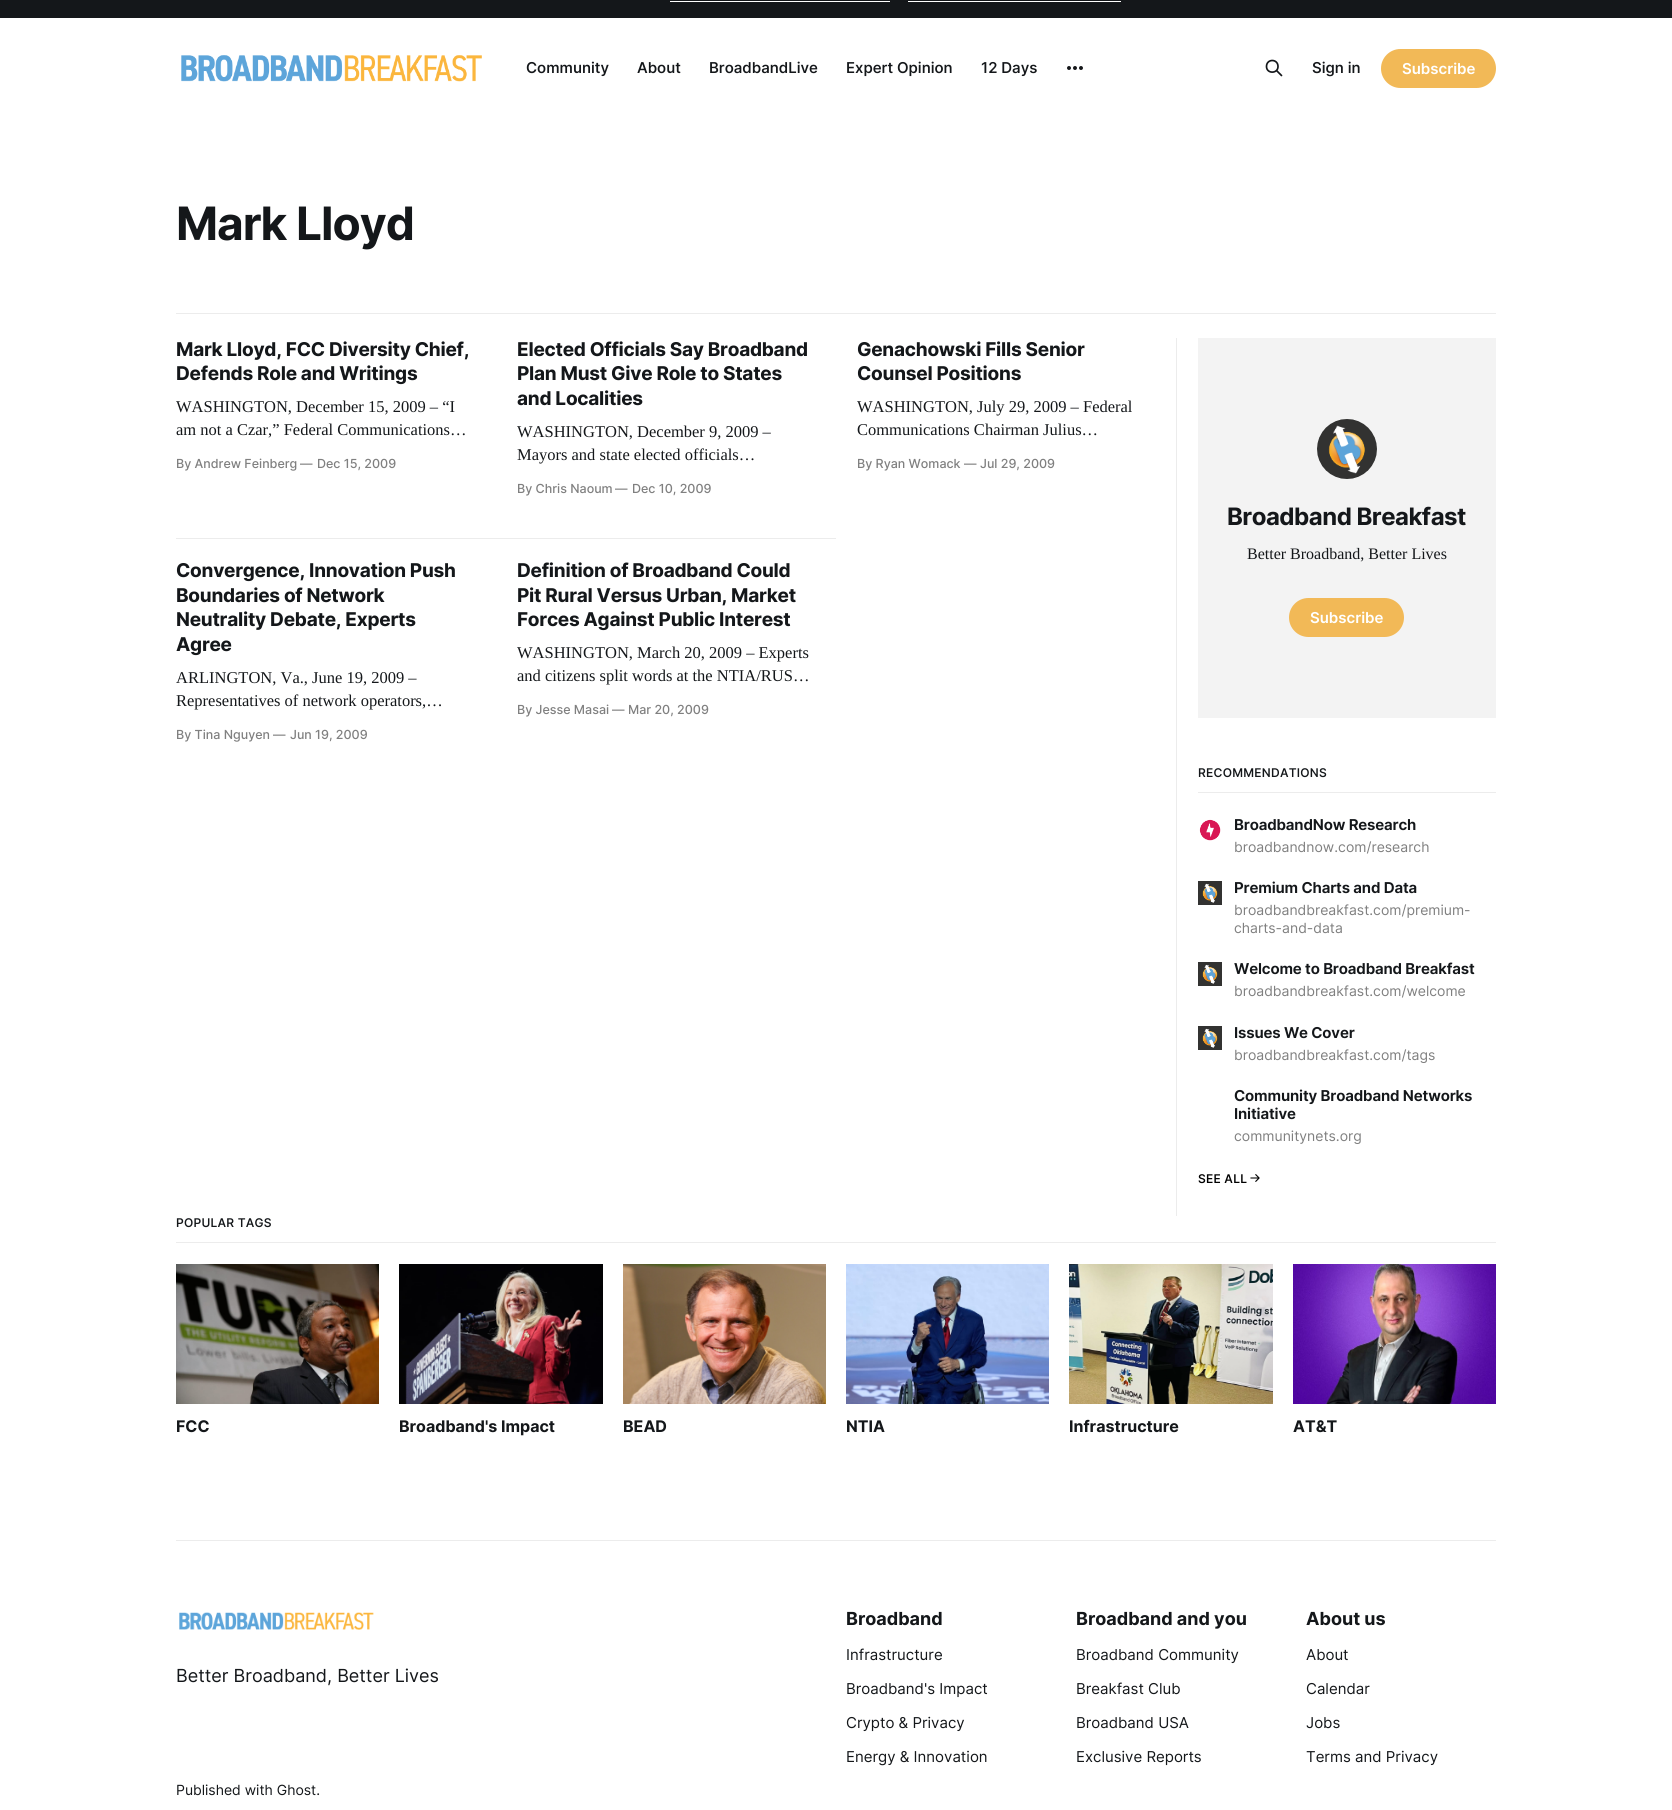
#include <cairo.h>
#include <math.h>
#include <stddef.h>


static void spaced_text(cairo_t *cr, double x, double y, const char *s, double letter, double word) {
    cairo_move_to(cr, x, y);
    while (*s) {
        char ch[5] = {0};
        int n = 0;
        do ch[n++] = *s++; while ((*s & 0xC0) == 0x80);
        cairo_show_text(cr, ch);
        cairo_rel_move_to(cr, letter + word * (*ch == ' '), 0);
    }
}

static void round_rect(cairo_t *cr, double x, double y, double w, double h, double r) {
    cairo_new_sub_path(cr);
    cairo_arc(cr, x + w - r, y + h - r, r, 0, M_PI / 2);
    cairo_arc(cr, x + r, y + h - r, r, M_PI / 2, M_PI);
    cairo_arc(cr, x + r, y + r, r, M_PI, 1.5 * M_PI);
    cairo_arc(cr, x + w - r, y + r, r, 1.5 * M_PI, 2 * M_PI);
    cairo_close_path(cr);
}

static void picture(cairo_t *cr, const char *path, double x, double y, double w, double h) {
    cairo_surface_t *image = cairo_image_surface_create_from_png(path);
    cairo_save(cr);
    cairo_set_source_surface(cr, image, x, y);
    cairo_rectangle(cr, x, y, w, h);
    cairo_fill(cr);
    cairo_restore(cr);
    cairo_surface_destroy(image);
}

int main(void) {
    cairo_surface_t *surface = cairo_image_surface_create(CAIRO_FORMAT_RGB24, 1672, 1810);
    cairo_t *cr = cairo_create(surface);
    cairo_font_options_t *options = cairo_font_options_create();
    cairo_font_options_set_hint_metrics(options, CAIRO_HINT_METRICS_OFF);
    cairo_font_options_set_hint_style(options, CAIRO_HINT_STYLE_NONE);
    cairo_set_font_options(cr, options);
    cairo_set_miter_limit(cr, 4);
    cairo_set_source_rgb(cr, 1, 1, 1);
    cairo_paint(cr);
    cairo_set_source_rgb(cr, 0.082, 0.09, 0.102);
    cairo_rectangle(cr, 0, 0, 1672, 18);
    cairo_fill(cr);
    cairo_set_source_rgb(cr, 1, 1, 1);
    cairo_rectangle(cr, 670, 1, 220, 1);
    cairo_fill(cr);
    cairo_rectangle(cr, 908, 1, 213, 1);
    cairo_fill(cr);
    picture(cr, "img1.png", 181, 55, 301, 27);
    cairo_select_font_face(cr, "Inter Medium", CAIRO_FONT_SLANT_NORMAL, CAIRO_FONT_WEIGHT_NORMAL);
    cairo_set_font_size(cr, 15);
    cairo_set_source_rgb(cr, 0.082, 0.09, 0.102);
    cairo_move_to(cr, 526, 73);
    cairo_show_text(cr, "Community");
    cairo_move_to(cr, 637, 73);
    cairo_show_text(cr, "About");
    cairo_move_to(cr, 709, 73);
    cairo_show_text(cr, "BroadbandLive");
    cairo_move_to(cr, 846, 73);
    cairo_show_text(cr, "Expert Opinion");
    cairo_move_to(cr, 981, 73);
    cairo_show_text(cr, "12 Days");
    picture(cr, "img2.png", 1067, 66, 16, 4);
    cairo_new_path(cr);
    cairo_move_to(cr, 1281.5, 75.5);
    cairo_line_to(cr, 1276.5, 70.5);
    cairo_move_to(cr, 1278, 66.5);
    cairo_curve_to(cr, 1278, 74, 1266.5, 74, 1266.5, 66.5);
    cairo_curve_to(cr, 1266.5, 58.5, 1278, 58.5, 1278, 66.5);
    cairo_close_path(cr);
    cairo_set_line_width(cr, 1.7);
    cairo_set_line_cap(cr, CAIRO_LINE_CAP_ROUND);
    cairo_set_line_join(cr, CAIRO_LINE_JOIN_ROUND);
    cairo_stroke(cr);
    cairo_move_to(cr, 1312, 73);
    cairo_show_text(cr, "Sign in");
    cairo_set_source_rgb(cr, 0.949, 0.725, 0.341);
    round_rect(cr, 1381, 49, 115, 39, 19.5);
    cairo_fill(cr);
    cairo_select_font_face(cr, "Inter SemiBold", CAIRO_FONT_SLANT_NORMAL, CAIRO_FONT_WEIGHT_NORMAL);
    cairo_set_source_rgb(cr, 1, 1, 1);
    cairo_move_to(cr, 1402, 74);
    cairo_show_text(cr, "Subscribe");
    cairo_set_source_rgb(cr, 0.922, 0.922, 0.922);
    cairo_rectangle(cr, 176, 313, 1320, 1);
    cairo_fill(cr);
    cairo_select_font_face(cr, "Inter", CAIRO_FONT_SLANT_NORMAL, CAIRO_FONT_WEIGHT_BOLD);
    cairo_set_font_size(cr, 46);
    cairo_set_source_rgb(cr, 0.082, 0.09, 0.102);
    spaced_text(cr, 176, 240, "Mark Lloyd", -1, 0);
    cairo_select_font_face(cr, "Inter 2", CAIRO_FONT_SLANT_NORMAL, CAIRO_FONT_WEIGHT_BOLD);
    cairo_set_font_size(cr, 19);
    spaced_text(cr, 176, 356, "Mark Lloyd, FCC Diversity Chief,", -0.25, 0);
    spaced_text(cr, 176, 380, "Defends Role and Writings", -0.25, 0);
    cairo_select_font_face(cr, "Liberation Serif", CAIRO_FONT_SLANT_NORMAL, CAIRO_FONT_WEIGHT_NORMAL);
    cairo_set_font_size(cr, 16.5);
    cairo_move_to(cr, 176, 412);
    cairo_show_text(cr, "WASHINGTON, December 15, 2009 – “I");
    cairo_move_to(cr, 176, 435);
    cairo_show_text(cr, "am not a Czar,” Federal Communications…");
    cairo_select_font_face(cr, "Inter 2 Medium", CAIRO_FONT_SLANT_NORMAL, CAIRO_FONT_WEIGHT_NORMAL);
    cairo_set_font_size(cr, 12.5);
    cairo_set_source_rgb(cr, 0.502, 0.502, 0.502);
    cairo_move_to(cr, 176, 468);
    cairo_show_text(cr, "By Andrew Feinberg");
    cairo_move_to(cr, 300, 468);
    cairo_show_text(cr, "—");
    cairo_move_to(cr, 317, 468);
    cairo_show_text(cr, "Dec 15, 2009");
    cairo_select_font_face(cr, "Inter 2", CAIRO_FONT_SLANT_NORMAL, CAIRO_FONT_WEIGHT_BOLD);
    cairo_set_font_size(cr, 19);
    cairo_set_source_rgb(cr, 0.082, 0.09, 0.102);
    spaced_text(cr, 517, 356, "Elected Officials Say Broadband", -0.25, 0);
    spaced_text(cr, 517, 380, "Plan Must Give Role to States", -0.25, 0);
    spaced_text(cr, 517, 405, "and Localities", -0.25, 0);
    cairo_select_font_face(cr, "Liberation Serif", CAIRO_FONT_SLANT_NORMAL, CAIRO_FONT_WEIGHT_NORMAL);
    cairo_set_font_size(cr, 16.5);
    cairo_move_to(cr, 517, 437);
    cairo_show_text(cr, "WASHINGTON, December 9, 2009 –");
    cairo_move_to(cr, 517, 460);
    cairo_show_text(cr, "Mayors and state elected officials…");
    cairo_select_font_face(cr, "Inter 2 Medium", CAIRO_FONT_SLANT_NORMAL, CAIRO_FONT_WEIGHT_NORMAL);
    cairo_set_font_size(cr, 12.5);
    cairo_set_source_rgb(cr, 0.502, 0.502, 0.502);
    cairo_move_to(cr, 517, 493);
    cairo_show_text(cr, "By Chris Naoum");
    cairo_move_to(cr, 615, 493);
    cairo_show_text(cr, "—");
    cairo_move_to(cr, 632, 493);
    cairo_show_text(cr, "Dec 10, 2009");
    cairo_select_font_face(cr, "Inter 2", CAIRO_FONT_SLANT_NORMAL, CAIRO_FONT_WEIGHT_BOLD);
    cairo_set_font_size(cr, 19);
    cairo_set_source_rgb(cr, 0.082, 0.09, 0.102);
    spaced_text(cr, 857, 356, "Genachowski Fills Senior", -0.25, 0);
    spaced_text(cr, 857, 380, "Counsel Positions", -0.25, 0);
    cairo_select_font_face(cr, "Liberation Serif", CAIRO_FONT_SLANT_NORMAL, CAIRO_FONT_WEIGHT_NORMAL);
    cairo_set_font_size(cr, 16.5);
    cairo_move_to(cr, 857, 412);
    cairo_show_text(cr, "WASHINGTON, July 29, 2009 – Federal");
    cairo_move_to(cr, 857, 435);
    cairo_show_text(cr, "Communications Chairman Julius…");
    cairo_select_font_face(cr, "Inter 2 Medium", CAIRO_FONT_SLANT_NORMAL, CAIRO_FONT_WEIGHT_NORMAL);
    cairo_set_font_size(cr, 12.5);
    cairo_set_source_rgb(cr, 0.502, 0.502, 0.502);
    cairo_move_to(cr, 857, 468);
    cairo_show_text(cr, "By Ryan Womack");
    cairo_move_to(cr, 964, 468);
    cairo_show_text(cr, "—");
    cairo_move_to(cr, 980, 468);
    cairo_show_text(cr, "Jul 29, 2009");
    cairo_set_source_rgb(cr, 0.922, 0.922, 0.922);
    cairo_rectangle(cr, 176, 538, 660, 1);
    cairo_fill(cr);
    cairo_select_font_face(cr, "Inter 2", CAIRO_FONT_SLANT_NORMAL, CAIRO_FONT_WEIGHT_BOLD);
    cairo_set_font_size(cr, 19);
    cairo_set_source_rgb(cr, 0.082, 0.09, 0.102);
    spaced_text(cr, 176, 577, "Convergence, Innovation Push", -0.25, 0);
    spaced_text(cr, 176, 602, "Boundaries of Network", -0.25, 0);
    spaced_text(cr, 176, 626, "Neutrality Debate, Experts", -0.25, 0);
    spaced_text(cr, 176, 651, "Agree", -0.25, 0);
    cairo_select_font_face(cr, "Liberation Serif", CAIRO_FONT_SLANT_NORMAL, CAIRO_FONT_WEIGHT_NORMAL);
    cairo_set_font_size(cr, 16.5);
    cairo_move_to(cr, 176, 683);
    cairo_show_text(cr, "ARLINGTON, Va., June 19, 2009 –");
    cairo_move_to(cr, 176, 706);
    cairo_show_text(cr, "Representatives of network operators,…");
    cairo_select_font_face(cr, "Inter 2 Medium", CAIRO_FONT_SLANT_NORMAL, CAIRO_FONT_WEIGHT_NORMAL);
    cairo_set_font_size(cr, 12.5);
    cairo_set_source_rgb(cr, 0.502, 0.502, 0.502);
    cairo_move_to(cr, 176, 739);
    cairo_show_text(cr, "By Tina Nguyen");
    cairo_move_to(cr, 273, 739);
    cairo_show_text(cr, "—");
    cairo_move_to(cr, 290, 739);
    cairo_show_text(cr, "Jun 19, 2009");
    cairo_select_font_face(cr, "Inter 2", CAIRO_FONT_SLANT_NORMAL, CAIRO_FONT_WEIGHT_BOLD);
    cairo_set_font_size(cr, 19);
    cairo_set_source_rgb(cr, 0.082, 0.09, 0.102);
    spaced_text(cr, 517, 577, "Definition of Broadband Could", -0.25, 0);
    spaced_text(cr, 517, 602, "Pit Rural Versus Urban, Market", -0.25, 0);
    spaced_text(cr, 517, 626, "Forces Against Public Interest", -0.25, 0);
    cairo_select_font_face(cr, "Liberation Serif", CAIRO_FONT_SLANT_NORMAL, CAIRO_FONT_WEIGHT_NORMAL);
    cairo_set_font_size(cr, 16.5);
    cairo_move_to(cr, 517, 658);
    cairo_show_text(cr, "WASHINGTON, March 20, 2009 – Experts");
    cairo_move_to(cr, 517, 681);
    cairo_show_text(cr, "and citizens split words at the NTIA/RUS…");
    cairo_select_font_face(cr, "Inter 2 Medium", CAIRO_FONT_SLANT_NORMAL, CAIRO_FONT_WEIGHT_NORMAL);
    cairo_set_font_size(cr, 12.5);
    cairo_set_source_rgb(cr, 0.502, 0.502, 0.502);
    cairo_move_to(cr, 517, 714);
    cairo_show_text(cr, "By Jesse Masai");
    cairo_move_to(cr, 612, 714);
    cairo_show_text(cr, "—");
    cairo_move_to(cr, 628, 714);
    cairo_show_text(cr, "Mar 20, 2009");
    cairo_set_source_rgb(cr, 0.922, 0.922, 0.922);
    cairo_rectangle(cr, 1176, 338, 1, 878);
    cairo_fill(cr);
    cairo_set_source_rgb(cr, 0.953, 0.953, 0.953);
    cairo_rectangle(cr, 1198, 338, 298, 380);
    cairo_fill(cr);
    picture(cr, "img3.png", 1317, 419, 60, 60);
    cairo_select_font_face(cr, "Inter", CAIRO_FONT_SLANT_NORMAL, CAIRO_FONT_WEIGHT_BOLD);
    cairo_set_font_size(cr, 24);
    cairo_set_source_rgb(cr, 0.082, 0.09, 0.102);
    spaced_text(cr, 1227, 525, "Broadband Breakfast", -0.5, 0);
    cairo_select_font_face(cr, "Liberation Serif", CAIRO_FONT_SLANT_NORMAL, CAIRO_FONT_WEIGHT_NORMAL);
    cairo_set_font_size(cr, 16);
    cairo_move_to(cr, 1247, 559);
    cairo_show_text(cr, "Better Broadband, Better Lives");
    cairo_set_source_rgb(cr, 0.949, 0.725, 0.341);
    round_rect(cr, 1289, 598, 115, 39, 19.5);
    cairo_fill(cr);
    cairo_select_font_face(cr, "Inter SemiBold", CAIRO_FONT_SLANT_NORMAL, CAIRO_FONT_WEIGHT_NORMAL);
    cairo_set_font_size(cr, 15);
    cairo_set_source_rgb(cr, 1, 1, 1);
    cairo_move_to(cr, 1310, 623);
    cairo_show_text(cr, "Subscribe");
    cairo_set_source_rgb(cr, 0.922, 0.922, 0.922);
    cairo_rectangle(cr, 1198, 792, 298, 1);
    cairo_fill(cr);
    cairo_select_font_face(cr, "Inter Medium", CAIRO_FONT_SLANT_NORMAL, CAIRO_FONT_WEIGHT_NORMAL);
    cairo_set_font_size(cr, 12);
    cairo_set_source_rgb(cr, 0.082, 0.09, 0.102);
    spaced_text(cr, 1198, 777, "RECOMMENDATIONS", 0.25, 0);
    picture(cr, "img4.png", 1199, 819, 22, 22);
    cairo_select_font_face(cr, "Inter 2 SemiBold", CAIRO_FONT_SLANT_NORMAL, CAIRO_FONT_WEIGHT_NORMAL);
    cairo_set_font_size(cr, 15);
    spaced_text(cr, 1234, 830, "BroadbandNow Research", -0.15, 0);
    cairo_select_font_face(cr, "Inter", CAIRO_FONT_SLANT_NORMAL, CAIRO_FONT_WEIGHT_NORMAL);
    cairo_set_font_size(cr, 14);
    cairo_set_source_rgb(cr, 0.502, 0.502, 0.502);
    cairo_move_to(cr, 1234, 852);
    cairo_show_text(cr, "broadbandnow.com/research");
    picture(cr, "img5.png", 1198, 881, 24, 24);
    cairo_select_font_face(cr, "Inter 2 SemiBold", CAIRO_FONT_SLANT_NORMAL, CAIRO_FONT_WEIGHT_NORMAL);
    cairo_set_font_size(cr, 15);
    cairo_set_source_rgb(cr, 0.082, 0.09, 0.102);
    spaced_text(cr, 1234, 893, "Premium Charts and Data", -0.15, 0);
    cairo_select_font_face(cr, "Inter", CAIRO_FONT_SLANT_NORMAL, CAIRO_FONT_WEIGHT_NORMAL);
    cairo_set_font_size(cr, 14);
    cairo_set_source_rgb(cr, 0.502, 0.502, 0.502);
    cairo_move_to(cr, 1234, 915);
    cairo_show_text(cr, "broadbandbreakfast.com/premium-");
    cairo_move_to(cr, 1234, 933);
    cairo_show_text(cr, "charts-and-data");
    picture(cr, "img6.png", 1198, 962, 24, 24);
    cairo_select_font_face(cr, "Inter 2 SemiBold", CAIRO_FONT_SLANT_NORMAL, CAIRO_FONT_WEIGHT_NORMAL);
    cairo_set_font_size(cr, 15);
    cairo_set_source_rgb(cr, 0.082, 0.09, 0.102);
    spaced_text(cr, 1234, 974, "Welcome to Broadband Breakfast", -0.15, 0);
    cairo_select_font_face(cr, "Inter", CAIRO_FONT_SLANT_NORMAL, CAIRO_FONT_WEIGHT_NORMAL);
    cairo_set_font_size(cr, 14);
    cairo_set_source_rgb(cr, 0.502, 0.502, 0.502);
    cairo_move_to(cr, 1234, 996);
    cairo_show_text(cr, "broadbandbreakfast.com/welcome");
    picture(cr, "img7.png", 1198, 1026, 24, 24);
    cairo_select_font_face(cr, "Inter 2 SemiBold", CAIRO_FONT_SLANT_NORMAL, CAIRO_FONT_WEIGHT_NORMAL);
    cairo_set_font_size(cr, 15);
    cairo_set_source_rgb(cr, 0.082, 0.09, 0.102);
    spaced_text(cr, 1234, 1038, "Issues We Cover", -0.15, 0);
    cairo_select_font_face(cr, "Inter", CAIRO_FONT_SLANT_NORMAL, CAIRO_FONT_WEIGHT_NORMAL);
    cairo_set_font_size(cr, 14);
    cairo_set_source_rgb(cr, 0.502, 0.502, 0.502);
    cairo_move_to(cr, 1234, 1060);
    cairo_show_text(cr, "broadbandbreakfast.com/tags");
    cairo_select_font_face(cr, "Inter 2 SemiBold", CAIRO_FONT_SLANT_NORMAL, CAIRO_FONT_WEIGHT_NORMAL);
    cairo_set_font_size(cr, 15);
    cairo_set_source_rgb(cr, 0.082, 0.09, 0.102);
    spaced_text(cr, 1234, 1101, "Community Broadband Networks", -0.15, 0);
    spaced_text(cr, 1234, 1119, "Initiative", -0.15, 0);
    cairo_select_font_face(cr, "Inter", CAIRO_FONT_SLANT_NORMAL, CAIRO_FONT_WEIGHT_NORMAL);
    cairo_set_font_size(cr, 14);
    cairo_set_source_rgb(cr, 0.502, 0.502, 0.502);
    cairo_move_to(cr, 1234, 1141);
    cairo_show_text(cr, "communitynets.org");
    cairo_select_font_face(cr, "Inter Medium", CAIRO_FONT_SLANT_NORMAL, CAIRO_FONT_WEIGHT_NORMAL);
    cairo_set_font_size(cr, 12);
    cairo_set_source_rgb(cr, 0, 0, 0);
    spaced_text(cr, 1198, 1183, "SEE ALL", 0.25, 0);
    picture(cr, "img8.png", 1250, 1174, 10, 8);
    cairo_set_source_rgb(cr, 0.922, 0.922, 0.922);
    cairo_rectangle(cr, 176, 1242, 1320, 1);
    cairo_fill(cr);
    cairo_set_source_rgb(cr, 0.082, 0.09, 0.102);
    spaced_text(cr, 176, 1227, "POPULAR TAGS", 0.25, 0);
    picture(cr, "img9.png", 176, 1264, 203, 140);
    cairo_select_font_face(cr, "Inter", CAIRO_FONT_SLANT_NORMAL, CAIRO_FONT_WEIGHT_BOLD);
    cairo_set_font_size(cr, 16);
    cairo_move_to(cr, 176, 1432);
    cairo_show_text(cr, "FCC");
    picture(cr, "img10.png", 399, 1264, 204, 140);
    cairo_move_to(cr, 399, 1432);
    cairo_show_text(cr, "Broadband's Impact");
    picture(cr, "img11.png", 623, 1264, 203, 140);
    cairo_move_to(cr, 623, 1432);
    cairo_show_text(cr, "BEAD");
    picture(cr, "img12.png", 846, 1264, 203, 140);
    cairo_move_to(cr, 846, 1432);
    cairo_show_text(cr, "NTIA");
    picture(cr, "img13.png", 1069, 1264, 204, 140);
    cairo_move_to(cr, 1069, 1432);
    cairo_show_text(cr, "Infrastructure");
    picture(cr, "img14.png", 1293, 1264, 203, 140);
    cairo_move_to(cr, 1293, 1432);
    cairo_show_text(cr, "AT&T");
    cairo_set_source_rgb(cr, 0.922, 0.922, 0.922);
    cairo_rectangle(cr, 176, 1540, 1320, 1);
    cairo_fill(cr);
    picture(cr, "img15.png", 179, 1612, 195, 18);
    cairo_select_font_face(cr, "Inter", CAIRO_FONT_SLANT_NORMAL, CAIRO_FONT_WEIGHT_NORMAL);
    cairo_set_font_size(cr, 18);
    cairo_set_source_rgb(cr, 0.082, 0.09, 0.102);
    cairo_move_to(cr, 176, 1682);
    cairo_show_text(cr, "Better Broadband, Better Lives");
    cairo_select_font_face(cr, "Inter", CAIRO_FONT_SLANT_NORMAL, CAIRO_FONT_WEIGHT_BOLD);
    cairo_move_to(cr, 846, 1625);
    cairo_show_text(cr, "Broadband");
    cairo_select_font_face(cr, "Inter", CAIRO_FONT_SLANT_NORMAL, CAIRO_FONT_WEIGHT_NORMAL);
    cairo_set_font_size(cr, 15);
    cairo_move_to(cr, 846, 1660);
    cairo_show_text(cr, "Infrastructure");
    cairo_move_to(cr, 846, 1694);
    cairo_show_text(cr, "Broadband's Impact");
    cairo_move_to(cr, 846, 1728);
    cairo_show_text(cr, "Crypto & Privacy");
    cairo_move_to(cr, 846, 1762);
    cairo_show_text(cr, "Energy & Innovation");
    cairo_select_font_face(cr, "Inter", CAIRO_FONT_SLANT_NORMAL, CAIRO_FONT_WEIGHT_BOLD);
    cairo_set_font_size(cr, 18);
    cairo_move_to(cr, 1076, 1625);
    cairo_show_text(cr, "Broadband and you");
    cairo_select_font_face(cr, "Inter", CAIRO_FONT_SLANT_NORMAL, CAIRO_FONT_WEIGHT_NORMAL);
    cairo_set_font_size(cr, 15);
    cairo_move_to(cr, 1076, 1660);
    cairo_show_text(cr, "Broadband Community");
    cairo_move_to(cr, 1076, 1694);
    cairo_show_text(cr, "Breakfast Club");
    cairo_move_to(cr, 1076, 1728);
    cairo_show_text(cr, "Broadband USA");
    cairo_move_to(cr, 1076, 1762);
    cairo_show_text(cr, "Exclusive Reports");
    cairo_select_font_face(cr, "Inter", CAIRO_FONT_SLANT_NORMAL, CAIRO_FONT_WEIGHT_BOLD);
    cairo_set_font_size(cr, 18);
    cairo_move_to(cr, 1306, 1625);
    cairo_show_text(cr, "About us");
    cairo_select_font_face(cr, "Inter", CAIRO_FONT_SLANT_NORMAL, CAIRO_FONT_WEIGHT_NORMAL);
    cairo_set_font_size(cr, 15);
    cairo_move_to(cr, 1306, 1660);
    cairo_show_text(cr, "About");
    cairo_move_to(cr, 1306, 1694);
    cairo_show_text(cr, "Calendar");
    cairo_move_to(cr, 1306, 1728);
    cairo_show_text(cr, "Jobs");
    cairo_move_to(cr, 1306, 1762);
    cairo_show_text(cr, "Terms and Privacy");
    cairo_set_font_size(cr, 14);
    cairo_move_to(cr, 176, 1795);
    cairo_show_text(cr, "Published with Ghost.");
    cairo_surface_write_to_png(surface, "page.png");
    cairo_font_options_destroy(options);
    cairo_destroy(cr);
    cairo_surface_destroy(surface);
    return 0;
}
